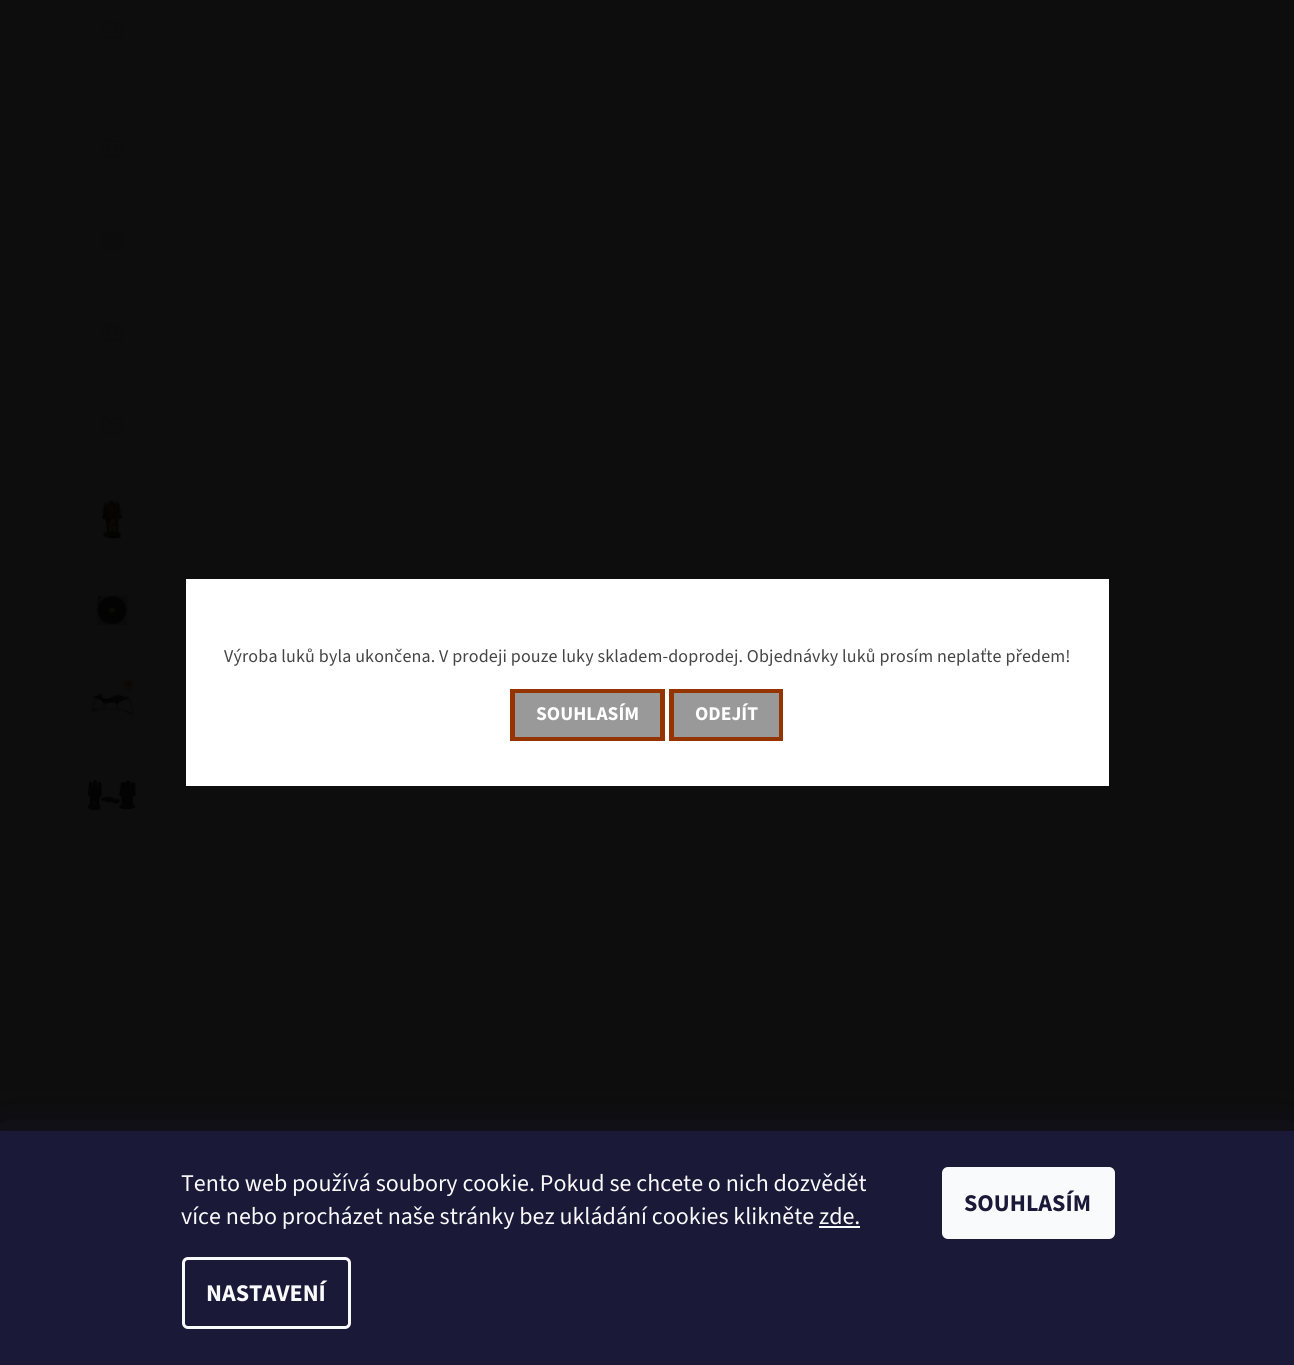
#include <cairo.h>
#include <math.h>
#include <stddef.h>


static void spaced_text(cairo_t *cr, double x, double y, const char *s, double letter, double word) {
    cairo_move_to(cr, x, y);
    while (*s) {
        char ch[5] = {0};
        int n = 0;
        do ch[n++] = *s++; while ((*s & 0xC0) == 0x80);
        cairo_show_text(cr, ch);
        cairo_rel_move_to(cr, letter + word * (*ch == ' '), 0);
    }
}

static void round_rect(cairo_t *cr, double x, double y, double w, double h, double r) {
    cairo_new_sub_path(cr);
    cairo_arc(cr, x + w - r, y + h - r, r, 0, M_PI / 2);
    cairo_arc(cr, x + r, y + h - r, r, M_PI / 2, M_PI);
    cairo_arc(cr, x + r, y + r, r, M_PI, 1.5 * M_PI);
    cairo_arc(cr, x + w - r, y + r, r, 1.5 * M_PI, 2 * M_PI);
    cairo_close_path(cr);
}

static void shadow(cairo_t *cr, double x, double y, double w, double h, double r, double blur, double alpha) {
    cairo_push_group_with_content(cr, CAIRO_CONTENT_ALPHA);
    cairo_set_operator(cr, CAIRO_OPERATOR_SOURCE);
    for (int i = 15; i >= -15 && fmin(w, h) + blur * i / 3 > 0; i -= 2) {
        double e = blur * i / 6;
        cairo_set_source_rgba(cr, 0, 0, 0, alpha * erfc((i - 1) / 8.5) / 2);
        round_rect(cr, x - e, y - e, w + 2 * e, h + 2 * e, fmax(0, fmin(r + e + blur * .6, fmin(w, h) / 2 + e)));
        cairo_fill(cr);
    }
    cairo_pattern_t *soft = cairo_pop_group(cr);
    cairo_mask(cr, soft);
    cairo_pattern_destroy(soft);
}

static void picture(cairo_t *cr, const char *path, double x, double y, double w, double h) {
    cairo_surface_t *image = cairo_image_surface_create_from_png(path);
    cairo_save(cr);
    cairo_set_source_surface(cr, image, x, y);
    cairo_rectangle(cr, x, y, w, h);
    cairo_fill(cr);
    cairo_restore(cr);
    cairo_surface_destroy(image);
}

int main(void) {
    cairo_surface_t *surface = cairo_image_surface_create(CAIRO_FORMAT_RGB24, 1294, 1365);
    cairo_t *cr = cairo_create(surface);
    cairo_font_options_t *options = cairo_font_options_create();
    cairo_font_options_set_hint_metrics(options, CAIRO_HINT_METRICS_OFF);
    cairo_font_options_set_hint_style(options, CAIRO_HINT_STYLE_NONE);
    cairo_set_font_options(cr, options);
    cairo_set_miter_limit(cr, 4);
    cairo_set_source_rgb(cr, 0.051, 0.051, 0.051);
    cairo_paint(cr);
    picture(cr, "img1.png", 101, 20, 22, 18);
    picture(cr, "img2.png", 101, 138, 22, 19);
    picture(cr, "img2.png", 101, 231, 22, 19);
    picture(cr, "img1.png", 101, 323, 22, 18);
    picture(cr, "img1.png", 101, 416, 22, 18);
    picture(cr, "img3.png", 101, 499, 22, 41);
    picture(cr, "img4.png", 95, 594, 33, 32);
    picture(cr, "img5.png", 90, 677, 45, 40);
    picture(cr, "img6.png", 87, 779, 50, 32);
    cairo_set_source_rgb(cr, 1, 1, 1);
    cairo_rectangle(cr, 186, 579, 923, 207);
    cairo_fill(cr);
    cairo_select_font_face(cr, "Source Sans 3", CAIRO_FONT_SLANT_NORMAL, CAIRO_FONT_WEIGHT_NORMAL);
    cairo_set_font_size(cr, 18);
    cairo_set_source_rgb(cr, 0.267, 0.267, 0.267);
    spaced_text(cr, 224, 662, "Výroba luků byla ukončena. V prodeji pouze luky skladem-doprodej. Objednávky luků prosím neplaťte předem!", 0.15, 0);
    cairo_set_source_rgb(cr, 0.6, 0.6, 0.6);
    cairo_rectangle(cr, 513.5, 691.5, 148, 47);
    cairo_fill_preserve(cr);
    cairo_set_source_rgb(cr, 0.588, 0.204, 0);
    cairo_set_line_width(cr, 3);
    cairo_stroke(cr);
    cairo_rectangle(cr, 511, 690, 153, 50);
    cairo_set_line_width(cr, 2);
    cairo_stroke(cr);
    cairo_select_font_face(cr, "Source Sans 3", CAIRO_FONT_SLANT_NORMAL, CAIRO_FONT_WEIGHT_BOLD);
    cairo_set_font_size(cr, 19.5);
    cairo_set_source_rgb(cr, 1, 1, 1);
    cairo_move_to(cr, 536, 720);
    cairo_show_text(cr, "SOUHLASÍM");
    cairo_set_source_rgb(cr, 0.6, 0.6, 0.6);
    cairo_rectangle(cr, 672.5, 691.5, 108, 47);
    cairo_fill_preserve(cr);
    cairo_set_source_rgb(cr, 0.588, 0.204, 0);
    cairo_set_line_width(cr, 3);
    cairo_stroke(cr);
    cairo_rectangle(cr, 670, 690, 112, 50);
    cairo_set_line_width(cr, 2);
    cairo_stroke(cr);
    cairo_set_source_rgb(cr, 1, 1, 1);
    cairo_move_to(cr, 695, 720);
    cairo_show_text(cr, "ODEJÍT");
    cairo_set_source_rgb(cr, 0.106, 0.098, 0.224);
    shadow(cr, 0, 1131, 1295, 234, 0, 22.5, 0.5);
    cairo_set_source_rgb(cr, 0.102, 0.098, 0.216);
    cairo_rectangle(cr, 0, 1131, 1294, 234);
    cairo_fill(cr);
    cairo_select_font_face(cr, "Source Sans 3", CAIRO_FONT_SLANT_NORMAL, CAIRO_FONT_WEIGHT_NORMAL);
    cairo_set_font_size(cr, 24);
    cairo_set_source_rgb(cr, 0.973, 0.98, 0.984);
    cairo_move_to(cr, 181, 1191);
    cairo_show_text(cr, "Tento web používá soubory cookie. Pokud se chcete o nich dozvědět");
    cairo_move_to(cr, 181, 1224);
    cairo_show_text(cr, "více nebo procházet naše stránky bez ukládání cookies klikněte zde.");
    cairo_rectangle(cr, 819, 1226, 41, 2);
    cairo_fill(cr);
    round_rect(cr, 183.5, 1258.5, 166, 69, 4.5);
    cairo_set_line_width(cr, 3);
    cairo_stroke(cr);
    cairo_select_font_face(cr, "Source Sans 3", CAIRO_FONT_SLANT_NORMAL, CAIRO_FONT_WEIGHT_BOLD);
    cairo_move_to(cr, 206, 1301);
    cairo_show_text(cr, "NASTAVENÍ");
    round_rect(cr, 942, 1167, 173, 72, 6);
    cairo_fill(cr);
    cairo_set_source_rgb(cr, 0.102, 0.098, 0.216);
    cairo_move_to(cr, 964, 1211);
    cairo_show_text(cr, "SOUHLASÍM");
    cairo_surface_write_to_png(surface, "page.png");
    cairo_font_options_destroy(options);
    cairo_destroy(cr);
    cairo_surface_destroy(surface);
    return 0;
}
